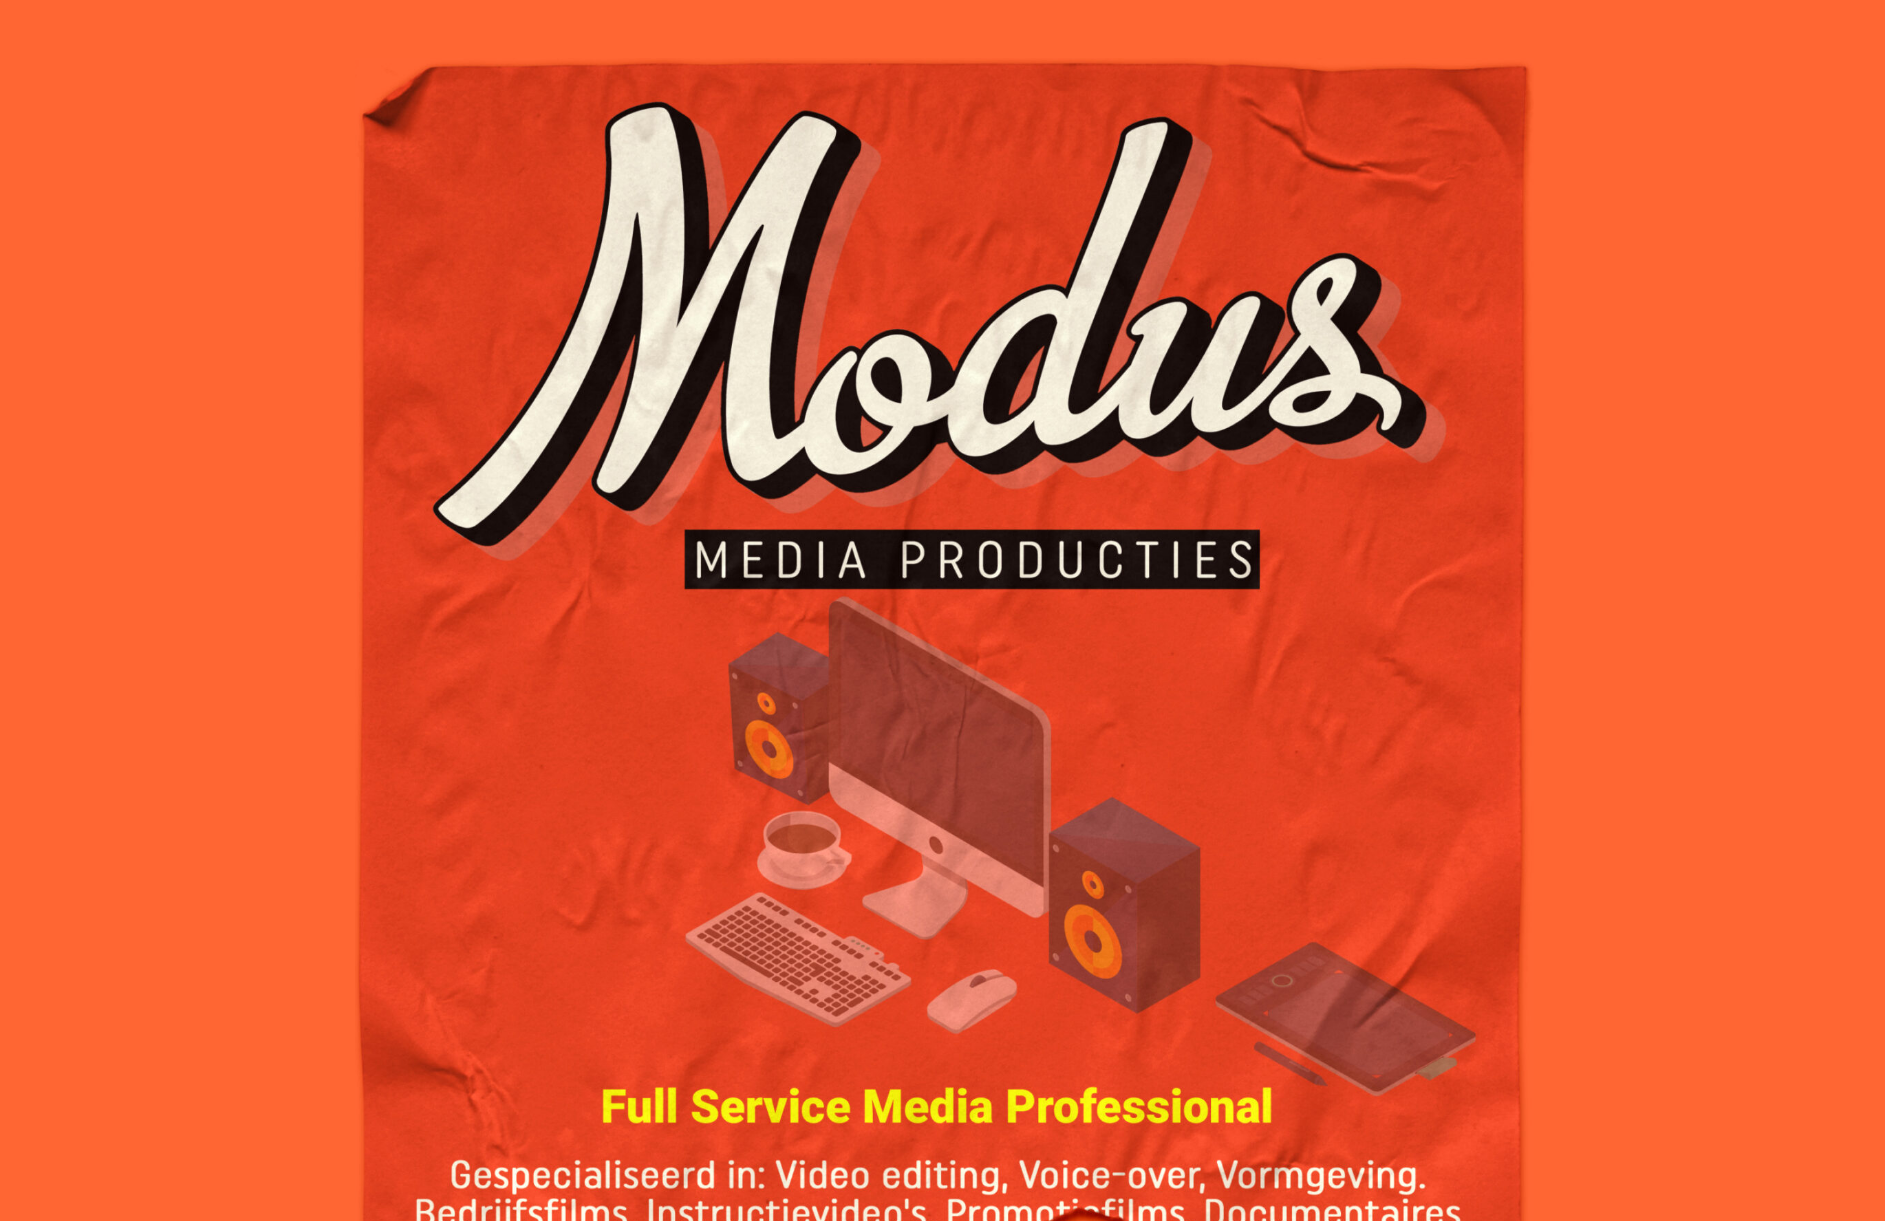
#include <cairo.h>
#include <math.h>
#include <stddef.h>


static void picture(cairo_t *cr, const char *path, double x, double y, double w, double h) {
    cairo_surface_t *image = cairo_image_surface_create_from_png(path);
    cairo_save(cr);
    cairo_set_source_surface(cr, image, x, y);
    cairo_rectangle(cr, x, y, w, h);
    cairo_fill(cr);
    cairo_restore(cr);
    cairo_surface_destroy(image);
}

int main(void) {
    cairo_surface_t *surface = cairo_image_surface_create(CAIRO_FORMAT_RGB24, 1885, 1221);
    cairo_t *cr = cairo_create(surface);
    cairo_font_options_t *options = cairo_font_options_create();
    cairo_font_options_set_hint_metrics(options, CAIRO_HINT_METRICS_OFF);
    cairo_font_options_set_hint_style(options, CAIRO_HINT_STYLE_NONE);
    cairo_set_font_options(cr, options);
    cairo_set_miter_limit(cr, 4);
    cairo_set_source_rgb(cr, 1, 0.4, 0.2);
    cairo_paint(cr);
    picture(cr, "img1.png", 355, 58, 1179, 1163);
    cairo_surface_write_to_png(surface, "page.png");
    cairo_font_options_destroy(options);
    cairo_destroy(cr);
    cairo_surface_destroy(surface);
    return 0;
}
